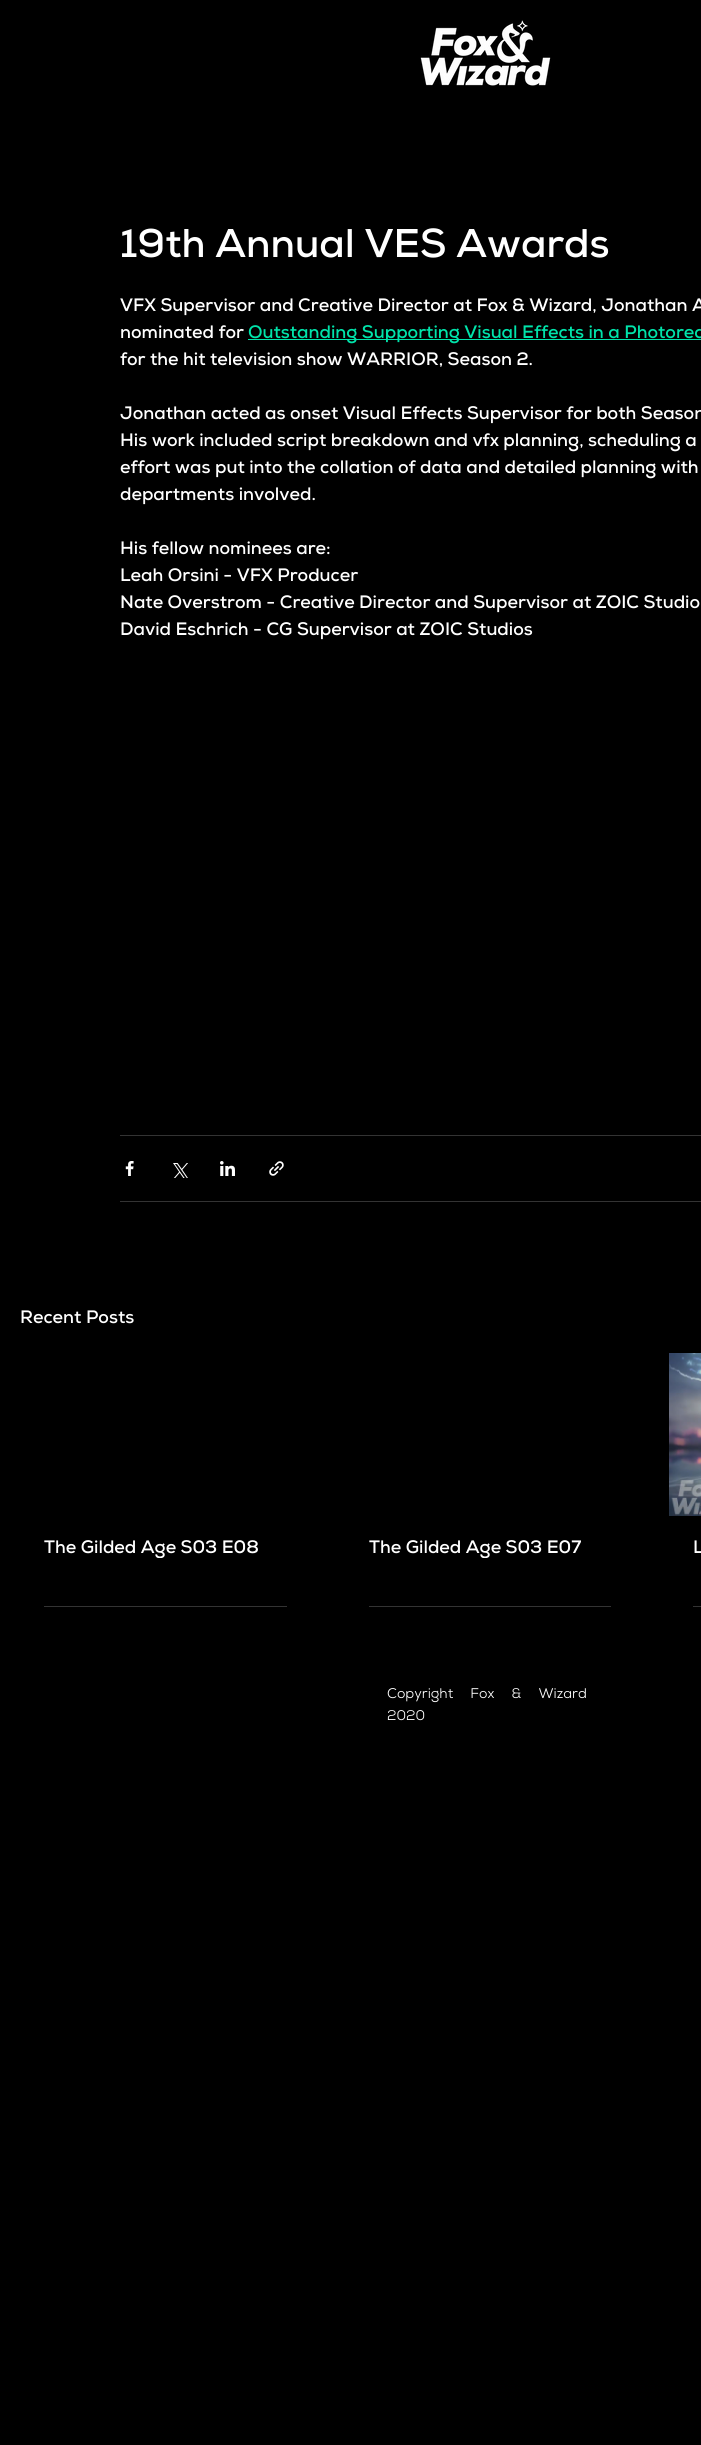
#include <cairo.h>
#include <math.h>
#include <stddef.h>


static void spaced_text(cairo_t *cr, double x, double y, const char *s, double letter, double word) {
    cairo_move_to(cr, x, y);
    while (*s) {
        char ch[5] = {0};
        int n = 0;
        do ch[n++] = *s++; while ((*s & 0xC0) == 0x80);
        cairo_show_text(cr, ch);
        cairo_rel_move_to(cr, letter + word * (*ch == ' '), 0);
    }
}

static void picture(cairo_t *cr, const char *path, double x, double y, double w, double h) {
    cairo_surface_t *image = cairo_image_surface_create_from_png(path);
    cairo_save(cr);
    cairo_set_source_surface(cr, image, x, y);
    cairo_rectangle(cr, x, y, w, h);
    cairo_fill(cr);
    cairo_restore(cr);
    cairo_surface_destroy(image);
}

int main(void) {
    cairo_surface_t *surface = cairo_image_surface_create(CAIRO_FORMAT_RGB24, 701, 2445);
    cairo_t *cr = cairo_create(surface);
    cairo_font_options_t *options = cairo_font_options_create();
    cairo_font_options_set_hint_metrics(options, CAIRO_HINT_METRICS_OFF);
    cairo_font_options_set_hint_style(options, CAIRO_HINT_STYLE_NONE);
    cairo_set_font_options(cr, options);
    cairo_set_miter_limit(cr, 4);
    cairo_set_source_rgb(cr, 0, 0, 0);
    cairo_paint(cr);
    picture(cr, "img1.png", 420, 20, 131, 66);
    cairo_select_font_face(cr, "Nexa", CAIRO_FONT_SLANT_NORMAL, CAIRO_FONT_WEIGHT_BOLD);
    cairo_set_font_size(cr, 40);
    cairo_set_source_rgb(cr, 1, 1, 1);
    cairo_move_to(cr, 120, 257);
    cairo_show_text(cr, "19th Annual VES Awards");
    cairo_set_font_size(cr, 18);
    cairo_move_to(cr, 120, 311);
    cairo_show_text(cr, "VFX Supervisor and Creative Director at Fox & Wizard, Jonathan A");
    cairo_move_to(cr, 120, 338);
    cairo_show_text(cr, "nominated for");
    cairo_set_source_rgb(cr, 0, 0.89, 0.667);
    cairo_rectangle(cr, 248, 339, 453, 1);
    cairo_fill(cr);
    cairo_move_to(cr, 248, 338);
    cairo_show_text(cr, "Outstanding Supporting Visual Effects in a Photorea");
    cairo_set_source_rgb(cr, 1, 1, 1);
    cairo_move_to(cr, 120, 365);
    cairo_show_text(cr, "for the hit television show WARRIOR, Season 2.");
    cairo_move_to(cr, 120, 419);
    cairo_show_text(cr, "Jonathan acted as onset Visual Effects Supervisor for both Season");
    cairo_move_to(cr, 120, 446);
    cairo_show_text(cr, "His work included script breakdown and vfx planning, scheduling a");
    cairo_move_to(cr, 120, 473);
    cairo_show_text(cr, "effort was put into the collation of data and detailed planning with");
    cairo_move_to(cr, 120, 500);
    cairo_show_text(cr, "departments involved.");
    cairo_move_to(cr, 120, 554);
    cairo_show_text(cr, "His fellow nominees are:");
    cairo_move_to(cr, 120, 581);
    cairo_show_text(cr, "Leah Orsini - VFX Producer");
    cairo_move_to(cr, 120, 608);
    cairo_show_text(cr, "Nate Overstrom - Creative Director and Supervisor at ZOIC Studio");
    cairo_move_to(cr, 120, 635);
    cairo_show_text(cr, "David Eschrich - CG Supervisor at ZOIC Studios");
    cairo_set_source_rgb(cr, 0.2, 0.2, 0.2);
    cairo_rectangle(cr, 120, 1135, 581, 1);
    cairo_fill(cr);
    picture(cr, "img2.png", 125, 1161, 9, 15);
    picture(cr, "img3.png", 173, 1163, 15, 15);
    picture(cr, "img4.png", 220, 1161, 15, 15);
    picture(cr, "img5.png", 269, 1161, 15, 15);
    cairo_rectangle(cr, 120, 1201, 581, 1);
    cairo_fill(cr);
    cairo_set_source_rgb(cr, 1, 1, 1);
    cairo_move_to(cr, 20, 1323);
    cairo_show_text(cr, "Recent Posts");
    cairo_save(cr);
    cairo_rectangle(cr, 44, 1540, 243, 18);
    cairo_clip(cr);
    cairo_move_to(cr, 44, 1553);
    cairo_show_text(cr, "The Gilded Age S03 E08");
    cairo_restore(cr);
    cairo_set_source_rgb(cr, 0.2, 0.2, 0.2);
    cairo_rectangle(cr, 44, 1606, 243, 1);
    cairo_fill(cr);
    cairo_save(cr);
    cairo_rectangle(cr, 369, 1540, 242, 18);
    cairo_clip(cr);
    cairo_set_source_rgb(cr, 1, 1, 1);
    cairo_move_to(cr, 369, 1553);
    cairo_show_text(cr, "The Gilded Age S03 E07");
    cairo_restore(cr);
    cairo_rectangle(cr, 369, 1606, 242, 1);
    cairo_fill(cr);
    picture(cr, "img6.png", 669, 1353, 32, 163);
    cairo_set_source_rgb(cr, 1, 1, 1);
    cairo_move_to(cr, 693, 1553);
    cairo_show_text(cr, "L");
    cairo_set_source_rgb(cr, 0.2, 0.2, 0.2);
    cairo_rectangle(cr, 693, 1606, 8, 1);
    cairo_fill(cr);
    cairo_select_font_face(cr, "Nexa", CAIRO_FONT_SLANT_NORMAL, CAIRO_FONT_WEIGHT_NORMAL);
    cairo_set_font_size(cr, 14);
    cairo_set_source_rgb(cr, 1, 1, 1);
    spaced_text(cr, 387, 1698, "Copyright Fox & Wizard", 0, 13.5);
    cairo_move_to(cr, 387, 1720);
    cairo_show_text(cr, "2020");
    cairo_surface_write_to_png(surface, "page.png");
    cairo_font_options_destroy(options);
    cairo_destroy(cr);
    cairo_surface_destroy(surface);
    return 0;
}
